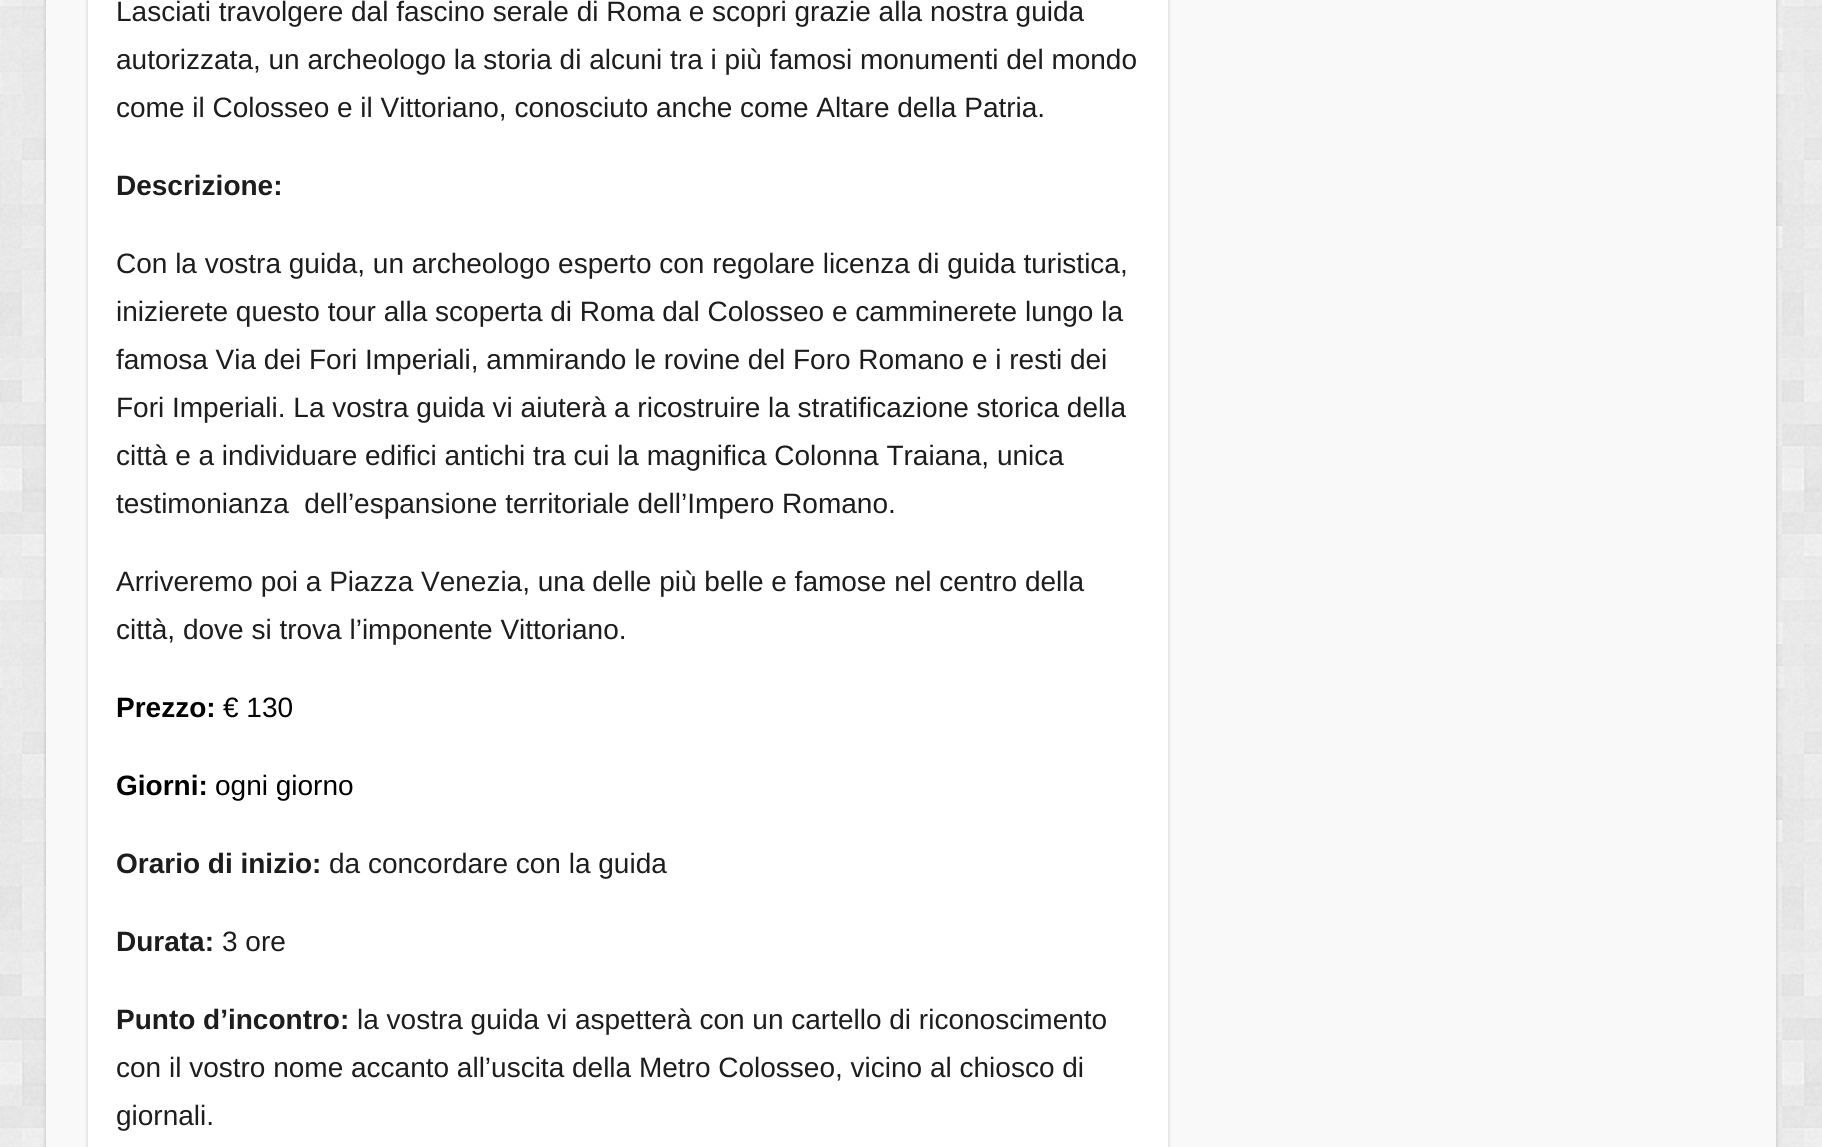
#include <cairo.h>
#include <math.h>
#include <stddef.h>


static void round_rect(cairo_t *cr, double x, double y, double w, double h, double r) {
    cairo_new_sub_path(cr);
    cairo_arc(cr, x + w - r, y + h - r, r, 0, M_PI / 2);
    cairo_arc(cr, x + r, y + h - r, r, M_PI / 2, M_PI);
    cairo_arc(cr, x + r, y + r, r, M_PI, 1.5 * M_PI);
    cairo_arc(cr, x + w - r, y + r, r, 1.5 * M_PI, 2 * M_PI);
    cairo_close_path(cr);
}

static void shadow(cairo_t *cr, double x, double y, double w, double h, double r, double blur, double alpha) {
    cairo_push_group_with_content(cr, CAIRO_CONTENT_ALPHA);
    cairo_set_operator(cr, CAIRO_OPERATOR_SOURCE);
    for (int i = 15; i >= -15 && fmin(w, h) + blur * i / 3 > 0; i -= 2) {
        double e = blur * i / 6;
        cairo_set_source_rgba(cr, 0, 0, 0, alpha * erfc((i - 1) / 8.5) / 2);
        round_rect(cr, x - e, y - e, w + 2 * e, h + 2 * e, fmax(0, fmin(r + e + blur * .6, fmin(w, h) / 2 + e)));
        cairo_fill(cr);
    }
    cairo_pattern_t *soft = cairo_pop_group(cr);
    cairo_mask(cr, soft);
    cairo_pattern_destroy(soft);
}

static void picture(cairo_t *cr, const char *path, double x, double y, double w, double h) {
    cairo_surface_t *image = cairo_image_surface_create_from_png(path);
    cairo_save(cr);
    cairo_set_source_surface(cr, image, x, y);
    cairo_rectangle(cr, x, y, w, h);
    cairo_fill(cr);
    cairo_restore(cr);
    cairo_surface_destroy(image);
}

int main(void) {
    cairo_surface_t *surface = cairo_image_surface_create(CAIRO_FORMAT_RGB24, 1822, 1147);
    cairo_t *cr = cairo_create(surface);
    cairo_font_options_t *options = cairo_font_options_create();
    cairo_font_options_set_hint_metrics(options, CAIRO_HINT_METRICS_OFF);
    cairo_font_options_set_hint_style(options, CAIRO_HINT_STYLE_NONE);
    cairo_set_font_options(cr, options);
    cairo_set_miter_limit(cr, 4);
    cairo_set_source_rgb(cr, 1, 1, 1);
    cairo_paint(cr);
    picture(cr, "img1.png", 0, 0, 1822, 1147);
    cairo_set_source_rgb(cr, 0, 0, 0);
    shadow(cr, 46, -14, 1730, 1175, 8, 2, 0.2);
    cairo_set_source_rgb(cr, 0.973, 0.973, 0.973);
    cairo_rectangle(cr, 46, 0, 1730, 1147);
    cairo_fill(cr);
    cairo_set_source_rgb(cr, 0, 0, 0);
    shadow(cr, 88, -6, 1080, 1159, 0, 2, 0.2);
    cairo_set_source_rgb(cr, 1, 1, 1);
    cairo_rectangle(cr, 88, 0, 1080, 1147);
    cairo_fill(cr);
    cairo_select_font_face(cr, "Liberation Sans", CAIRO_FONT_SLANT_NORMAL, CAIRO_FONT_WEIGHT_NORMAL);
    cairo_set_font_size(cr, 28);
    cairo_set_source_rgb(cr, 0.114, 0.114, 0.114);
    cairo_move_to(cr, 116, 21);
    cairo_show_text(cr, "Lasciati travolgere dal fascino serale di Roma e scopri grazie alla nostra guida");
    cairo_move_to(cr, 116, 69);
    cairo_show_text(cr, "autorizzata, un archeologo la storia di alcuni tra i più famosi monumenti del mondo");
    cairo_move_to(cr, 116, 117);
    cairo_show_text(cr, "come il Colosseo e il Vittoriano, conosciuto anche come Altare della Patria.");
    cairo_select_font_face(cr, "Liberation Sans", CAIRO_FONT_SLANT_NORMAL, CAIRO_FONT_WEIGHT_BOLD);
    cairo_move_to(cr, 116, 195);
    cairo_show_text(cr, "Descrizione:");
    cairo_select_font_face(cr, "Liberation Sans", CAIRO_FONT_SLANT_NORMAL, CAIRO_FONT_WEIGHT_NORMAL);
    cairo_move_to(cr, 116, 273);
    cairo_show_text(cr, "Con la vostra guida, un archeologo esperto con regolare licenza di guida turistica,");
    cairo_move_to(cr, 116, 321);
    cairo_show_text(cr, "inizierete questo tour alla scoperta di Roma dal Colosseo e camminerete lungo la");
    cairo_move_to(cr, 116, 369);
    cairo_show_text(cr, "famosa Via dei Fori Imperiali, ammirando le rovine del Foro Romano e i resti dei");
    cairo_move_to(cr, 116, 417);
    cairo_show_text(cr, "Fori Imperiali. La vostra guida vi aiuterà a ricostruire la stratificazione storica della");
    cairo_move_to(cr, 116, 465);
    cairo_show_text(cr, "città e a individuare edifici antichi tra cui la magnifica Colonna Traiana, unica");
    cairo_move_to(cr, 116, 513);
    cairo_show_text(cr, "testimonianza  dell’espansione territoriale dell’Impero Romano.");
    cairo_move_to(cr, 116, 591);
    cairo_show_text(cr, "Arriveremo poi a Piazza Venezia, una delle più belle e famose nel centro della");
    cairo_move_to(cr, 116, 639);
    cairo_show_text(cr, "città, dove si trova l’imponente Vittoriano.");
    cairo_select_font_face(cr, "Liberation Sans", CAIRO_FONT_SLANT_NORMAL, CAIRO_FONT_WEIGHT_BOLD);
    cairo_set_source_rgb(cr, 0, 0, 0);
    cairo_move_to(cr, 116, 717);
    cairo_show_text(cr, "Prezzo:");
    cairo_select_font_face(cr, "Liberation Sans", CAIRO_FONT_SLANT_NORMAL, CAIRO_FONT_WEIGHT_NORMAL);
    cairo_move_to(cr, 223, 717);
    cairo_show_text(cr, "€ 130");
    cairo_select_font_face(cr, "Liberation Sans", CAIRO_FONT_SLANT_NORMAL, CAIRO_FONT_WEIGHT_BOLD);
    cairo_move_to(cr, 116, 795);
    cairo_show_text(cr, "Giorni:");
    cairo_select_font_face(cr, "Liberation Sans", CAIRO_FONT_SLANT_NORMAL, CAIRO_FONT_WEIGHT_NORMAL);
    cairo_move_to(cr, 215, 795);
    cairo_show_text(cr, "ogni giorno");
    cairo_select_font_face(cr, "Liberation Sans", CAIRO_FONT_SLANT_NORMAL, CAIRO_FONT_WEIGHT_BOLD);
    cairo_set_source_rgb(cr, 0.114, 0.114, 0.114);
    cairo_move_to(cr, 116, 873);
    cairo_show_text(cr, "Orario di inizio:");
    cairo_select_font_face(cr, "Liberation Sans", CAIRO_FONT_SLANT_NORMAL, CAIRO_FONT_WEIGHT_NORMAL);
    cairo_move_to(cr, 329, 873);
    cairo_show_text(cr, "da concordare con la guida");
    cairo_select_font_face(cr, "Liberation Sans", CAIRO_FONT_SLANT_NORMAL, CAIRO_FONT_WEIGHT_BOLD);
    cairo_move_to(cr, 116, 951);
    cairo_show_text(cr, "Durata:");
    cairo_select_font_face(cr, "Liberation Sans", CAIRO_FONT_SLANT_NORMAL, CAIRO_FONT_WEIGHT_NORMAL);
    cairo_move_to(cr, 222, 951);
    cairo_show_text(cr, "3 ore");
    cairo_select_font_face(cr, "Liberation Sans", CAIRO_FONT_SLANT_NORMAL, CAIRO_FONT_WEIGHT_BOLD);
    cairo_move_to(cr, 116, 1029);
    cairo_show_text(cr, "Punto d’incontro:");
    cairo_select_font_face(cr, "Liberation Sans", CAIRO_FONT_SLANT_NORMAL, CAIRO_FONT_WEIGHT_NORMAL);
    cairo_move_to(cr, 357, 1029);
    cairo_show_text(cr, "la vostra guida vi aspetterà con un cartello di riconoscimento");
    cairo_move_to(cr, 116, 1077);
    cairo_show_text(cr, "con il vostro nome accanto all’uscita della Metro Colosseo, vicino al chiosco di");
    cairo_move_to(cr, 116, 1125);
    cairo_show_text(cr, "giornali.");
    cairo_surface_write_to_png(surface, "page.png");
    cairo_font_options_destroy(options);
    cairo_destroy(cr);
    cairo_surface_destroy(surface);
    return 0;
}
